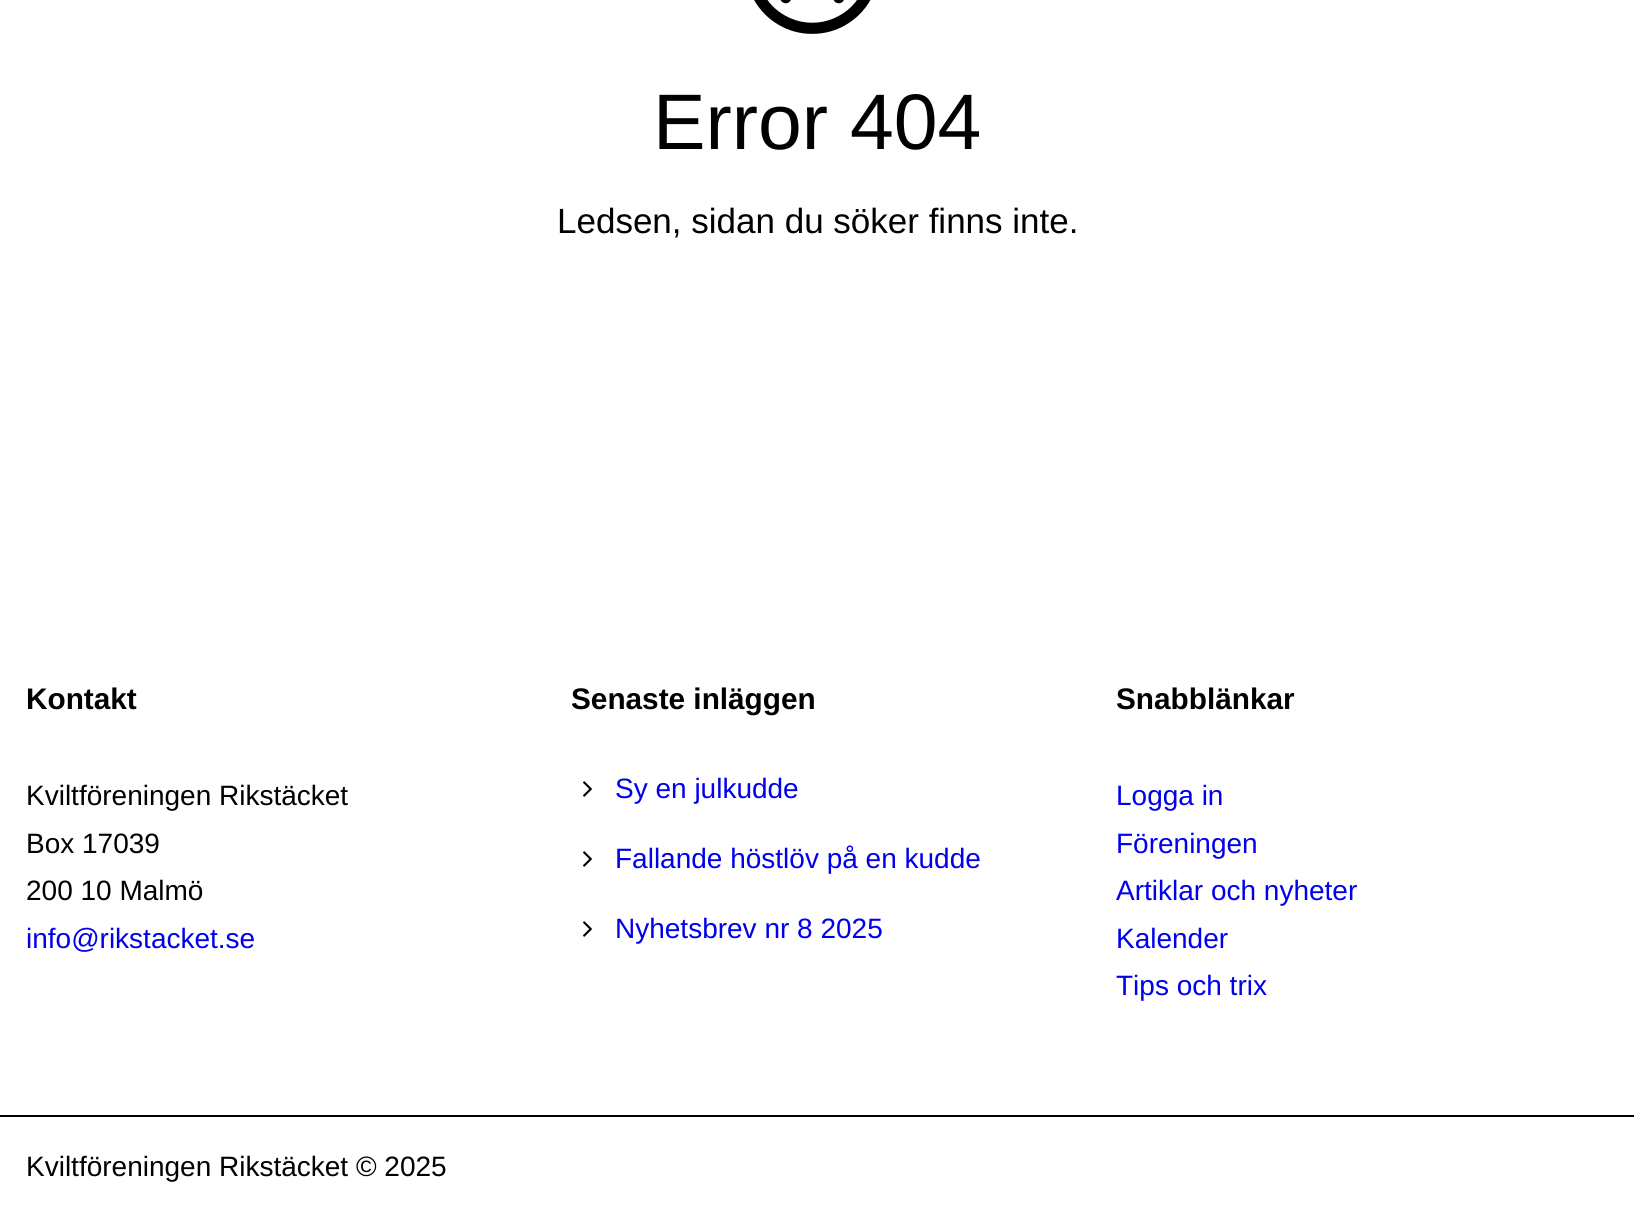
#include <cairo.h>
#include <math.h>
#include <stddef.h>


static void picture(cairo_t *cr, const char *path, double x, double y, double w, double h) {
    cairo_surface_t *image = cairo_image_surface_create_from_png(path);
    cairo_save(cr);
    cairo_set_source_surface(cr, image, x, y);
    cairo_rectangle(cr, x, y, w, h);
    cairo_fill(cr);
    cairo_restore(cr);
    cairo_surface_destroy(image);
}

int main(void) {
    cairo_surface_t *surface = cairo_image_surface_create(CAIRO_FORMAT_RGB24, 1634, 1215);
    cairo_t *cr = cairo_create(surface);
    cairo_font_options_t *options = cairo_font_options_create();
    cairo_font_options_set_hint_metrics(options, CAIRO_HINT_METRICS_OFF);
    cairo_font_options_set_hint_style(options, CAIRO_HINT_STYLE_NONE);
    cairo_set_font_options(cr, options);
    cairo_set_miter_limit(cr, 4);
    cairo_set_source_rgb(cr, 1, 1, 1);
    cairo_paint(cr);
    picture(cr, "img1.png", 754, 0, 117, 34);
    cairo_select_font_face(cr, "Liberation Sans", CAIRO_FONT_SLANT_NORMAL, CAIRO_FONT_WEIGHT_NORMAL);
    cairo_set_font_size(cr, 78.75);
    cairo_set_source_rgb(cr, 0, 0, 0);
    cairo_move_to(cr, 653, 149);
    cairo_show_text(cr, "Error 404");
    cairo_set_font_size(cr, 35);
    cairo_move_to(cr, 557, 233);
    cairo_show_text(cr, "Ledsen, sidan du söker finns inte.");
    cairo_select_font_face(cr, "Liberation Sans", CAIRO_FONT_SLANT_NORMAL, CAIRO_FONT_WEIGHT_BOLD);
    cairo_set_font_size(cr, 29.75);
    cairo_move_to(cr, 26, 709);
    cairo_show_text(cr, "Kontakt");
    cairo_select_font_face(cr, "Liberation Sans", CAIRO_FONT_SLANT_NORMAL, CAIRO_FONT_WEIGHT_NORMAL);
    cairo_set_font_size(cr, 28);
    cairo_move_to(cr, 26, 805);
    cairo_show_text(cr, "Kviltföreningen Rikstäcket");
    cairo_move_to(cr, 26, 853);
    cairo_show_text(cr, "Box 17039");
    cairo_move_to(cr, 26, 900);
    cairo_show_text(cr, "200 10 Malmö");
    cairo_set_source_rgb(cr, 0, 0, 0.933);
    cairo_move_to(cr, 26, 948);
    cairo_show_text(cr, "info@rikstacket.se");
    cairo_select_font_face(cr, "Liberation Sans", CAIRO_FONT_SLANT_NORMAL, CAIRO_FONT_WEIGHT_BOLD);
    cairo_set_font_size(cr, 29.75);
    cairo_set_source_rgb(cr, 0, 0, 0);
    cairo_move_to(cr, 571, 709);
    cairo_show_text(cr, "Senaste inläggen");
    picture(cr, "img2.png", 583, 781, 9, 16);
    cairo_select_font_face(cr, "Liberation Sans", CAIRO_FONT_SLANT_NORMAL, CAIRO_FONT_WEIGHT_NORMAL);
    cairo_set_font_size(cr, 28);
    cairo_set_source_rgb(cr, 0, 0, 0.933);
    cairo_move_to(cr, 615, 798);
    cairo_show_text(cr, "Sy en julkudde");
    picture(cr, "img2.png", 583, 851, 9, 16);
    cairo_move_to(cr, 615, 868);
    cairo_show_text(cr, "Fallande höstlöv på en kudde");
    picture(cr, "img2.png", 583, 921, 9, 16);
    cairo_move_to(cr, 615, 938);
    cairo_show_text(cr, "Nyhetsbrev nr 8 2025");
    cairo_select_font_face(cr, "Liberation Sans", CAIRO_FONT_SLANT_NORMAL, CAIRO_FONT_WEIGHT_BOLD);
    cairo_set_font_size(cr, 29.75);
    cairo_set_source_rgb(cr, 0, 0, 0);
    cairo_move_to(cr, 1116, 709);
    cairo_show_text(cr, "Snabblänkar");
    cairo_select_font_face(cr, "Liberation Sans", CAIRO_FONT_SLANT_NORMAL, CAIRO_FONT_WEIGHT_NORMAL);
    cairo_set_font_size(cr, 28);
    cairo_set_source_rgb(cr, 0, 0, 0.933);
    cairo_move_to(cr, 1116, 805);
    cairo_show_text(cr, "Logga in");
    cairo_move_to(cr, 1116, 853);
    cairo_show_text(cr, "Föreningen");
    cairo_move_to(cr, 1116, 900);
    cairo_show_text(cr, "Artiklar och nyheter");
    cairo_move_to(cr, 1116, 948);
    cairo_show_text(cr, "Kalender");
    cairo_move_to(cr, 1116, 995);
    cairo_show_text(cr, "Tips och trix");
    cairo_set_source_rgb(cr, 0, 0, 0);
    cairo_rectangle(cr, 0, 1115, 1634, 2);
    cairo_fill(cr);
    cairo_move_to(cr, 26, 1176);
    cairo_show_text(cr, "Kviltföreningen Rikstäcket © 2025");
    cairo_surface_write_to_png(surface, "page.png");
    cairo_font_options_destroy(options);
    cairo_destroy(cr);
    cairo_surface_destroy(surface);
    return 0;
}
